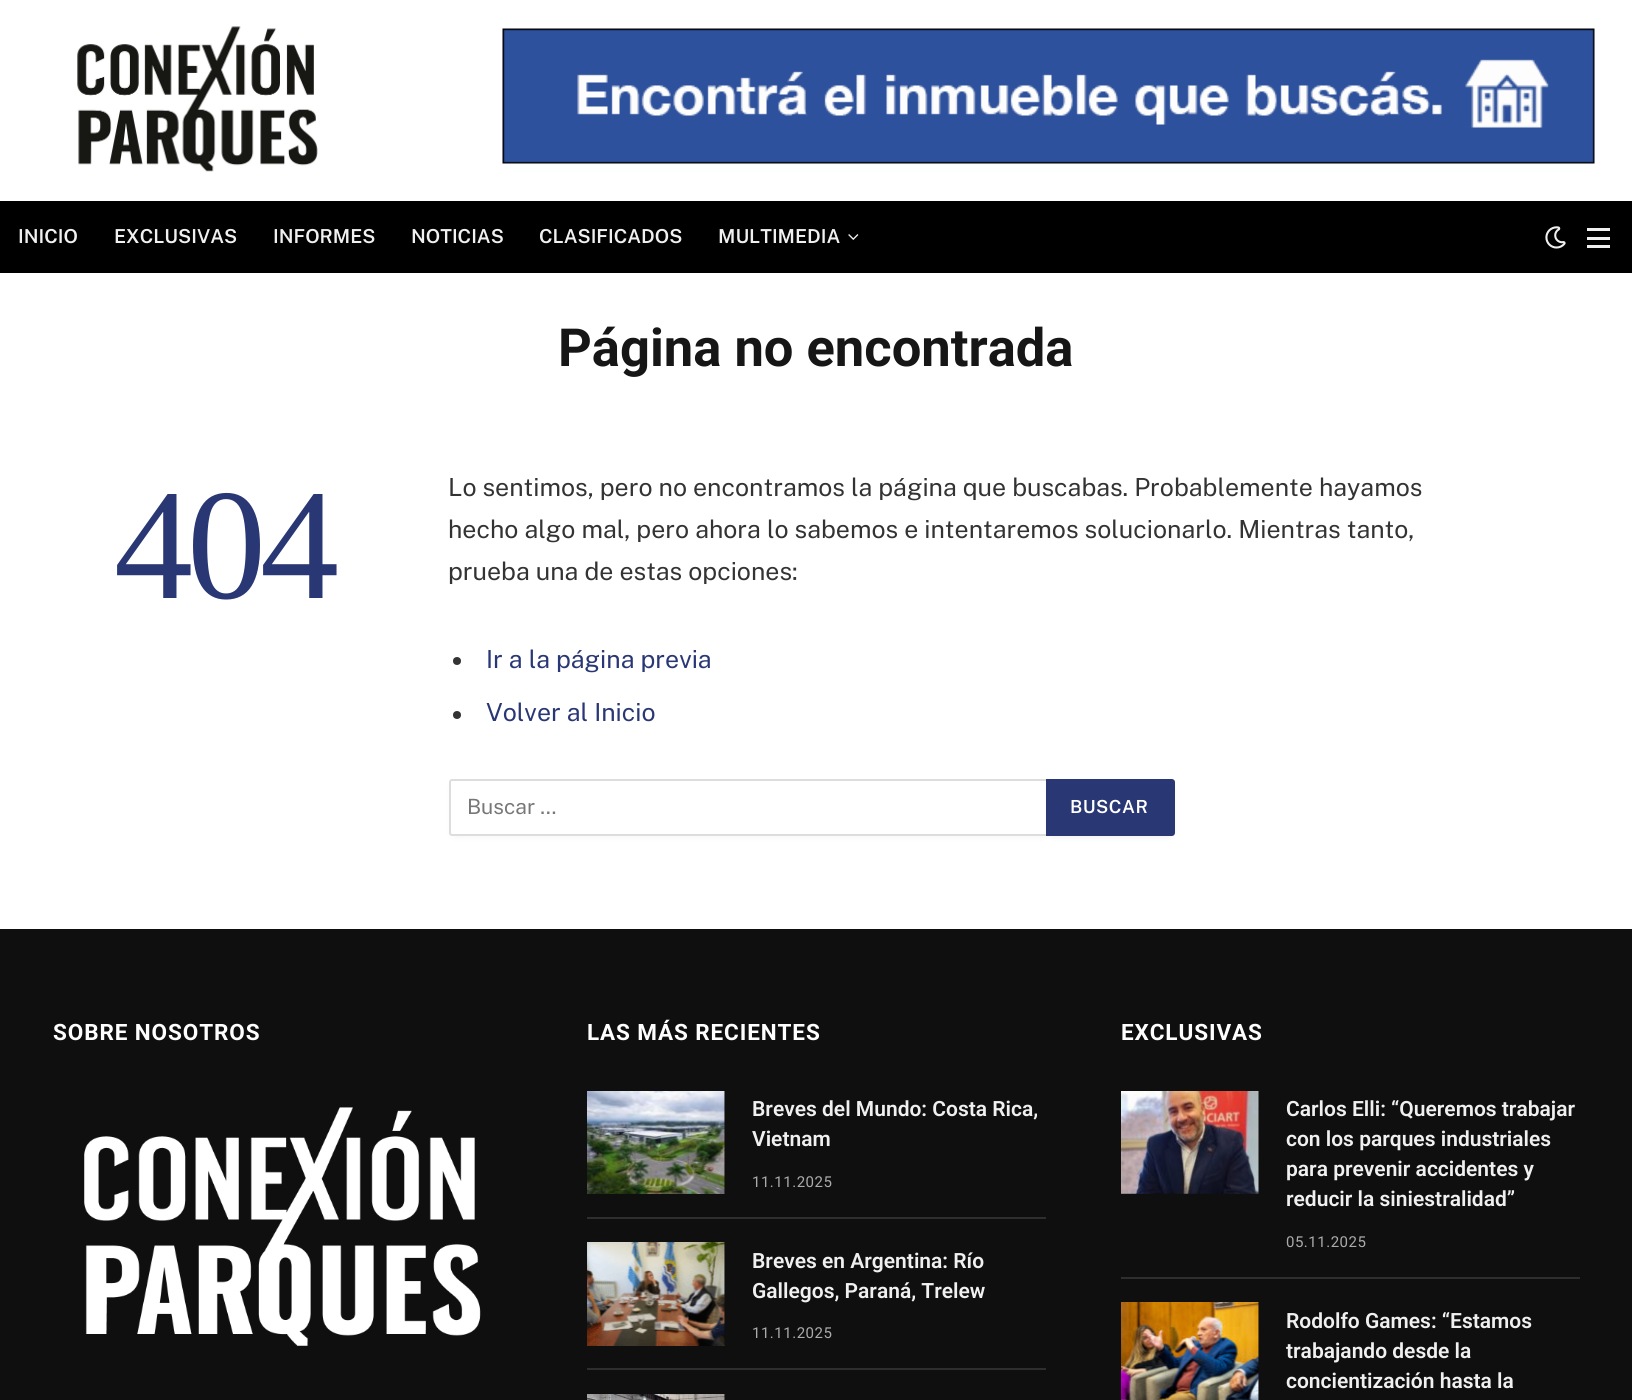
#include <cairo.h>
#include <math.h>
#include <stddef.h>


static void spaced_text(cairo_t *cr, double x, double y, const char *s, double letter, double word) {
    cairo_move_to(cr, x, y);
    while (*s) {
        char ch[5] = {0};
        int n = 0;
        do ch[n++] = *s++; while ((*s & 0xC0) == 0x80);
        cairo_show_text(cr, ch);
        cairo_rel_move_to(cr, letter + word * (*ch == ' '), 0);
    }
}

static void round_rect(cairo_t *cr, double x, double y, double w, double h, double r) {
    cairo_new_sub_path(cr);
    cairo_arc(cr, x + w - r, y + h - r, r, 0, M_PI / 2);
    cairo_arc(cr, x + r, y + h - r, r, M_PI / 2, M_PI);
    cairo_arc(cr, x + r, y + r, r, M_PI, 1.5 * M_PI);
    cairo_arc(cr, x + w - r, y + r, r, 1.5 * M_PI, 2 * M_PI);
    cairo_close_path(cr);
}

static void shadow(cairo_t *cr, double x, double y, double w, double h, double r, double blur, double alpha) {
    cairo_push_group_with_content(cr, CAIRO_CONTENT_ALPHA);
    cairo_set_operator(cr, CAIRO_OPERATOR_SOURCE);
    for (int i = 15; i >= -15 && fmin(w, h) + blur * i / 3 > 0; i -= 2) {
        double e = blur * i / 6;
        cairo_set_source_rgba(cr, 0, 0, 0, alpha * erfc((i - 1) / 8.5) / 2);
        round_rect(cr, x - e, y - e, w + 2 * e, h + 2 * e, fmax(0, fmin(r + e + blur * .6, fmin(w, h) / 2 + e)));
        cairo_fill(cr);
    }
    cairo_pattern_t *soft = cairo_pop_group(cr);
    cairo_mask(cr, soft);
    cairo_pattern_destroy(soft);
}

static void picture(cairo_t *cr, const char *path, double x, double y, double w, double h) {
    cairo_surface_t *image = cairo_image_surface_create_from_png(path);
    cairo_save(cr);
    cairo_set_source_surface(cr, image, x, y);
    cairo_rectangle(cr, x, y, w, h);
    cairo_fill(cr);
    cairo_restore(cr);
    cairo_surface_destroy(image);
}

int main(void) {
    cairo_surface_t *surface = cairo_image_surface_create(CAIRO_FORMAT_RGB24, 1632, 1400);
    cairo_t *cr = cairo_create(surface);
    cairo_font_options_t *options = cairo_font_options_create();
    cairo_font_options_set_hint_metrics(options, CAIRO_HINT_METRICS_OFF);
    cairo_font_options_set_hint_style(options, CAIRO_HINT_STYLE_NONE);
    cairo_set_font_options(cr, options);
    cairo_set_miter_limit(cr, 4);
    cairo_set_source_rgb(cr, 1, 1, 1);
    cairo_paint(cr);
    picture(cr, "img1.png", 77, 26, 241, 146);
    picture(cr, "img2.png", 502, 28, 1093, 136);
    cairo_set_source_rgb(cr, 0, 0, 0);
    cairo_rectangle(cr, 0, 201, 1632, 72);
    cairo_fill(cr);
    cairo_select_font_face(cr, "Public Sans SemiBold", CAIRO_FONT_SLANT_NORMAL, CAIRO_FONT_WEIGHT_NORMAL);
    cairo_set_font_size(cr, 19.25);
    cairo_set_source_rgb(cr, 0.941, 0.941, 0.941);
    cairo_move_to(cr, 18, 243);
    cairo_show_text(cr, "INICIO");
    cairo_move_to(cr, 114, 243);
    cairo_show_text(cr, "EXCLUSIVAS");
    cairo_move_to(cr, 273, 243);
    cairo_show_text(cr, "INFORMES");
    cairo_move_to(cr, 411, 243);
    cairo_show_text(cr, "NOTICIAS");
    cairo_move_to(cr, 539, 243);
    cairo_show_text(cr, "CLASIFICADOS");
    cairo_move_to(cr, 718, 243);
    cairo_show_text(cr, "MULTIMEDIA");
    picture(cr, "img3.png", 848, 234, 11, 6);
    picture(cr, "img4.png", 1545, 226, 21, 23);
    cairo_rectangle(cr, 1587, 245, 23, 3);
    cairo_fill(cr);
    cairo_rectangle(cr, 1587, 228, 23, 3);
    cairo_fill(cr);
    cairo_rectangle(cr, 1587, 237, 23, 3);
    cairo_fill(cr);
    cairo_select_font_face(cr, "Roboto", CAIRO_FONT_SLANT_NORMAL, CAIRO_FONT_WEIGHT_BOLD);
    cairo_set_font_size(cr, 52.5);
    cairo_set_source_rgb(cr, 0.086, 0.086, 0.086);
    cairo_move_to(cr, 558, 366);
    cairo_show_text(cr, "Página no encontrada");
    cairo_select_font_face(cr, "Liberation Serif", CAIRO_FONT_SLANT_NORMAL, CAIRO_FONT_WEIGHT_NORMAL);
    cairo_set_font_size(cr, 158);
    cairo_set_source_rgb(cr, 0.161, 0.216, 0.455);
    spaced_text(cr, 114, 598, "404", -6, 0);
    cairo_select_font_face(cr, "Public Sans", CAIRO_FONT_SLANT_NORMAL, CAIRO_FONT_WEIGHT_NORMAL);
    cairo_set_font_size(cr, 24.9);
    cairo_set_source_rgb(cr, 0.2, 0.2, 0.2);
    cairo_move_to(cr, 448, 496);
    cairo_show_text(cr, "Lo sentimos, pero no encontramos la página que buscabas. Probablemente hayamos");
    cairo_move_to(cr, 448, 538);
    cairo_show_text(cr, "hecho algo mal, pero ahora lo sabemos e intentaremos solucionarlo. Mientras tanto,");
    cairo_move_to(cr, 448, 580);
    cairo_show_text(cr, "prueba una de estas opciones:");
    cairo_new_path(cr);
    cairo_arc(cr, 457, 661, 4, 0, 2 * M_PI);
    cairo_fill(cr);
    cairo_set_source_rgb(cr, 0.161, 0.216, 0.455);
    cairo_move_to(cr, 486, 668);
    cairo_show_text(cr, "Ir a la página previa");
    cairo_set_source_rgb(cr, 0.2, 0.2, 0.2);
    cairo_new_path(cr);
    cairo_arc(cr, 457, 715, 4, 0, 2 * M_PI);
    cairo_fill(cr);
    cairo_set_source_rgb(cr, 0.161, 0.216, 0.455);
    cairo_move_to(cr, 486, 721);
    cairo_show_text(cr, "Volver al Inicio");
    cairo_set_source_rgb(cr, 0, 0, 0);
    shadow(cr, 455, 788, 588, 45, 0, 5, 0.1);
    cairo_set_source_rgb(cr, 1, 1, 1);
    round_rect(cr, 450, 780, 598, 55, 2);
    cairo_fill_preserve(cr);
    cairo_set_source_rgb(cr, 0.867, 0.867, 0.867);
    cairo_stroke(cr);
    cairo_set_font_size(cr, 21);
    cairo_set_source_rgb(cr, 0.467, 0.467, 0.467);
    cairo_move_to(cr, 467, 814);
    cairo_show_text(cr, "Buscar …");
    cairo_set_source_rgb(cr, 0, 0, 0);
    shadow(cr, 1052, 788, 117, 45, 0, 5, 0.16);
    cairo_set_source_rgb(cr, 0.161, 0.216, 0.455);
    cairo_new_path(cr);
    cairo_move_to(cr, 1046, 779);
    cairo_line_to(cr, 1172, 779);
    cairo_curve_to(cr, 1173.5, 779, 1175, 780.5, 1175, 782);
    cairo_line_to(cr, 1175, 833);
    cairo_curve_to(cr, 1175, 834.5, 1173.5, 836, 1172, 836);
    cairo_line_to(cr, 1046, 836);
    cairo_close_path(cr);
    cairo_fill(cr);
    cairo_select_font_face(cr, "Public Sans SemiBold", CAIRO_FONT_SLANT_NORMAL, CAIRO_FONT_WEIGHT_NORMAL);
    cairo_set_font_size(cr, 18);
    cairo_set_source_rgb(cr, 1, 1, 1);
    spaced_text(cr, 1070, 813, "BUSCAR", 0.5, 0);
    cairo_set_source_rgb(cr, 0.059, 0.059, 0.059);
    cairo_rectangle(cr, 0, 929, 1632, 471);
    cairo_fill(cr);
    cairo_select_font_face(cr, "Roboto", CAIRO_FONT_SLANT_NORMAL, CAIRO_FONT_WEIGHT_BOLD);
    cairo_set_font_size(cr, 22.5);
    cairo_set_source_rgb(cr, 1, 1, 1);
    spaced_text(cr, 53, 1040, "SOBRE NOSOTROS", 0.9, 0);
    picture(cr, "img5.png", 84, 1107, 397, 239);
    spaced_text(cr, 587, 1040, "LAS MÁS RECIENTES", 0.9, 0);
    picture(cr, "img6.png", 587, 1091, 138, 103);
    cairo_select_font_face(cr, "Roboto SemiBold", CAIRO_FONT_SLANT_NORMAL, CAIRO_FONT_WEIGHT_NORMAL);
    cairo_set_font_size(cr, 21);
    cairo_set_source_rgb(cr, 0.941, 0.941, 0.941);
    cairo_move_to(cr, 752, 1116);
    cairo_show_text(cr, "Breves del Mundo: Costa Rica,");
    cairo_move_to(cr, 752, 1146);
    cairo_show_text(cr, "Vietnam");
    cairo_select_font_face(cr, "Roboto", CAIRO_FONT_SLANT_NORMAL, CAIRO_FONT_WEIGHT_NORMAL);
    cairo_set_font_size(cr, 15);
    cairo_set_source_rgb(cr, 0.671, 0.671, 0.671);
    spaced_text(cr, 752, 1187, "11.11.2025", 0.5, 0);
    cairo_set_source_rgb(cr, 0.18, 0.18, 0.18);
    cairo_rectangle(cr, 587, 1217, 459, 2);
    cairo_fill(cr);
    picture(cr, "img7.png", 587, 1242, 138, 104);
    cairo_select_font_face(cr, "Roboto SemiBold", CAIRO_FONT_SLANT_NORMAL, CAIRO_FONT_WEIGHT_NORMAL);
    cairo_set_font_size(cr, 21);
    cairo_set_source_rgb(cr, 0.941, 0.941, 0.941);
    cairo_move_to(cr, 752, 1268);
    cairo_show_text(cr, "Breves en Argentina: Río");
    cairo_move_to(cr, 752, 1298);
    cairo_show_text(cr, "Gallegos, Paraná, Trelew");
    cairo_select_font_face(cr, "Roboto", CAIRO_FONT_SLANT_NORMAL, CAIRO_FONT_WEIGHT_NORMAL);
    cairo_set_font_size(cr, 15);
    cairo_set_source_rgb(cr, 0.671, 0.671, 0.671);
    spaced_text(cr, 752, 1338, "11.11.2025", 0.5, 0);
    cairo_set_source_rgb(cr, 0.18, 0.18, 0.18);
    cairo_rectangle(cr, 587, 1368, 459, 2);
    cairo_fill(cr);
    picture(cr, "img8.png", 587, 1394, 138, 6);
    cairo_select_font_face(cr, "Roboto", CAIRO_FONT_SLANT_NORMAL, CAIRO_FONT_WEIGHT_BOLD);
    cairo_set_font_size(cr, 22.5);
    cairo_set_source_rgb(cr, 1, 1, 1);
    spaced_text(cr, 1121, 1040, "EXCLUSIVAS", 0.9, 0);
    picture(cr, "img9.png", 1121, 1091, 138, 103);
    cairo_select_font_face(cr, "Roboto SemiBold", CAIRO_FONT_SLANT_NORMAL, CAIRO_FONT_WEIGHT_NORMAL);
    cairo_set_font_size(cr, 21);
    cairo_set_source_rgb(cr, 0.941, 0.941, 0.941);
    cairo_move_to(cr, 1286, 1116);
    cairo_show_text(cr, "Carlos Elli: “Queremos trabajar");
    cairo_move_to(cr, 1286, 1146);
    cairo_show_text(cr, "con los parques industriales");
    cairo_move_to(cr, 1286, 1176);
    cairo_show_text(cr, "para prevenir accidentes y");
    cairo_move_to(cr, 1286, 1206);
    cairo_show_text(cr, "reducir la siniestralidad”");
    cairo_select_font_face(cr, "Roboto", CAIRO_FONT_SLANT_NORMAL, CAIRO_FONT_WEIGHT_NORMAL);
    cairo_set_font_size(cr, 15);
    cairo_set_source_rgb(cr, 0.671, 0.671, 0.671);
    spaced_text(cr, 1286, 1247, "05.11.2025", 0.5, 0);
    cairo_set_source_rgb(cr, 0.18, 0.18, 0.18);
    cairo_rectangle(cr, 1121, 1277, 459, 2);
    cairo_fill(cr);
    picture(cr, "img10.png", 1121, 1302, 138, 98);
    cairo_select_font_face(cr, "Roboto SemiBold", CAIRO_FONT_SLANT_NORMAL, CAIRO_FONT_WEIGHT_NORMAL);
    cairo_set_font_size(cr, 21);
    cairo_set_source_rgb(cr, 0.941, 0.941, 0.941);
    cairo_move_to(cr, 1286, 1328);
    cairo_show_text(cr, "Rodolfo Games: “Estamos");
    cairo_move_to(cr, 1286, 1358);
    cairo_show_text(cr, "trabajando desde la");
    cairo_move_to(cr, 1286, 1388);
    cairo_show_text(cr, "concientización hasta la");
    cairo_surface_write_to_png(surface, "page.png");
    cairo_font_options_destroy(options);
    cairo_destroy(cr);
    cairo_surface_destroy(surface);
    return 0;
}
